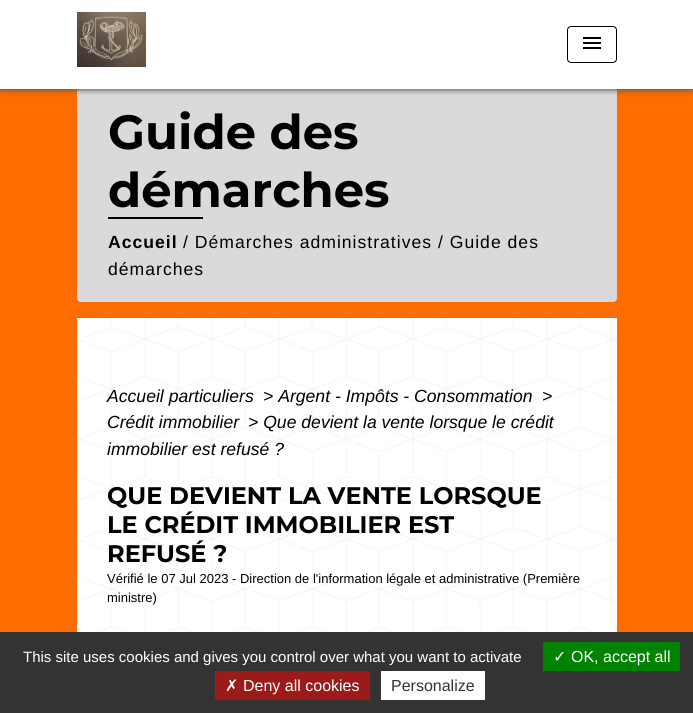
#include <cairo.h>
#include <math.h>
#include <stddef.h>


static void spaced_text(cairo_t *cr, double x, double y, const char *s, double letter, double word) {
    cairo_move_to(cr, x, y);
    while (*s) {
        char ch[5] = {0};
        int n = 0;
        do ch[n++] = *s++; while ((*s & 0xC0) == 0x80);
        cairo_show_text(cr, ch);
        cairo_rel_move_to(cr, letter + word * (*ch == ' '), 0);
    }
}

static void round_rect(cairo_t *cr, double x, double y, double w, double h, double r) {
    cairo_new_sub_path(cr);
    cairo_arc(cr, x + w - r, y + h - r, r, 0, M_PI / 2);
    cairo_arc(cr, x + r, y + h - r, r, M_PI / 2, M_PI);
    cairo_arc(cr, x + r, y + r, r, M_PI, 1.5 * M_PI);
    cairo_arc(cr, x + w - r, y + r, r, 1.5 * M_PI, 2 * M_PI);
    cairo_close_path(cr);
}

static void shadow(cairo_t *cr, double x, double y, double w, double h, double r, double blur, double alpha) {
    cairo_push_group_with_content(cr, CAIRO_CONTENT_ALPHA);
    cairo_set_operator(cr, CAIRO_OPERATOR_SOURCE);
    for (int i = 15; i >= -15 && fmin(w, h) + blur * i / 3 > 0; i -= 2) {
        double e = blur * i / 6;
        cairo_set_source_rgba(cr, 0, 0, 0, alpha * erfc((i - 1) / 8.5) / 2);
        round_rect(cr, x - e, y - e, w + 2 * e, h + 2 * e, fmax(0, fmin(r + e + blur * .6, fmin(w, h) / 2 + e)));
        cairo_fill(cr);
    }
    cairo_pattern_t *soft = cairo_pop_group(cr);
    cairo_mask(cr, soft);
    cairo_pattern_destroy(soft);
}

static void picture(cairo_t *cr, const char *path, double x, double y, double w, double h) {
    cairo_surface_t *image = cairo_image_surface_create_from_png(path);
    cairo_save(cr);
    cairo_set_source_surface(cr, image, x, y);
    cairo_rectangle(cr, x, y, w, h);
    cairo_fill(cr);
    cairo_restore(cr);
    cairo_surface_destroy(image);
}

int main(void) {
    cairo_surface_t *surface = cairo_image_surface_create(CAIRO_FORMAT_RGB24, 693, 713);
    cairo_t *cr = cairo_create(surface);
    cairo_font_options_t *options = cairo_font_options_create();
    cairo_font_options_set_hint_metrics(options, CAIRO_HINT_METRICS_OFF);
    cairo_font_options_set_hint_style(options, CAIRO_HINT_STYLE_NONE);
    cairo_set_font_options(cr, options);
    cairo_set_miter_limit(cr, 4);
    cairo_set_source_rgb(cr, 1, 0.424, 0);
    cairo_paint(cr);
    cairo_set_source_rgb(cr, 0.855, 0.855, 0.855);
    round_rect(cr, 77, 84, 540, 218, 4);
    cairo_fill(cr);
    cairo_set_source_rgb(cr, 0.325, 0.325, 0.325);
    shadow(cr, 0, 1, 693, 89, 0, 3, 1);
    cairo_set_source_rgb(cr, 1, 1, 1);
    cairo_rectangle(cr, 0, 0, 693, 89);
    cairo_fill(cr);
    picture(cr, "img1.png", 77, 12, 69, 55);
    round_rect(cr, 567.5, 26.5, 49, 36, 3.5);
    cairo_set_source_rgb(cr, 0, 0, 0);
    cairo_set_line_width(cr, 1);
    cairo_stroke(cr);
    picture(cr, "img2.png", 583, 37, 18, 12);
    cairo_select_font_face(cr, "Montserrat", CAIRO_FONT_SLANT_NORMAL, CAIRO_FONT_WEIGHT_BOLD);
    cairo_set_font_size(cr, 48);
    cairo_move_to(cr, 108, 149);
    cairo_show_text(cr, "Guide des");
    cairo_move_to(cr, 108, 207);
    cairo_show_text(cr, "démarches");
    cairo_rectangle(cr, 108, 217, 95, 2);
    cairo_fill(cr);
    cairo_select_font_face(cr, "Liberation Sans", CAIRO_FONT_SLANT_NORMAL, CAIRO_FONT_WEIGHT_BOLD);
    cairo_set_font_size(cr, 17.6);
    spaced_text(cr, 108, 248, "Accueil", 1, 0);
    cairo_select_font_face(cr, "Liberation Sans", CAIRO_FONT_SLANT_NORMAL, CAIRO_FONT_WEIGHT_NORMAL);
    spaced_text(cr, 183, 248, "/ Démarches administratives / Guide des", 1, 0);
    spaced_text(cr, 108, 275, "démarches", 1, 0);
    cairo_set_source_rgb(cr, 1, 1, 1);
    cairo_rectangle(cr, 77, 318, 540, 314);
    cairo_fill(cr);
    picture(cr, "img3.png", 77, 318, 540, 314);
    cairo_select_font_face(cr, "Liberation Sans", CAIRO_FONT_SLANT_ITALIC, CAIRO_FONT_WEIGHT_NORMAL);
    cairo_set_source_rgb(cr, 0, 0, 0);
    cairo_move_to(cr, 107, 402);
    cairo_show_text(cr, "Accueil particuliers");
    cairo_move_to(cr, 263, 402);
    cairo_show_text(cr, "> Argent - Impôts - Consommation");
    cairo_move_to(cr, 542, 402);
    cairo_show_text(cr, ">");
    cairo_move_to(cr, 107, 428);
    cairo_show_text(cr, "Crédit immobilier");
    cairo_move_to(cr, 248, 428);
    cairo_show_text(cr, "> Que devient la vente lorsque le crédit");
    cairo_move_to(cr, 107, 455);
    cairo_show_text(cr, "immobilier est refusé ?");
    cairo_select_font_face(cr, "Montserrat", CAIRO_FONT_SLANT_NORMAL, CAIRO_FONT_WEIGHT_BOLD);
    cairo_set_font_size(cr, 24);
    cairo_move_to(cr, 107, 504);
    cairo_show_text(cr, "QUE DEVIENT LA VENTE LORSQUE");
    cairo_move_to(cr, 107, 533);
    cairo_show_text(cr, "LE CRÉDIT IMMOBILIER EST");
    cairo_move_to(cr, 107, 562);
    cairo_show_text(cr, "REFUSÉ ?");
    cairo_select_font_face(cr, "Liberation Sans", CAIRO_FONT_SLANT_NORMAL, CAIRO_FONT_WEIGHT_NORMAL);
    cairo_set_font_size(cr, 13);
    cairo_move_to(cr, 107, 583);
    cairo_show_text(cr, "Vérifié le 07 Jul 2023 - Direction de l'information légale et administrative (Première");
    cairo_move_to(cr, 107, 602);
    cairo_show_text(cr, "ministre)");
    cairo_set_source_rgb(cr, 0.2, 0.2, 0.2);
    cairo_rectangle(cr, 0, 632, 693, 81);
    cairo_fill(cr);
    cairo_set_font_size(cr, 15);
    cairo_set_source_rgb(cr, 1, 1, 1);
    cairo_move_to(cr, 23, 662);
    cairo_show_text(cr, "This site uses cookies and gives you control over what you want to activate");
    cairo_set_source_rgb(cr, 0, 0.514, 0);
    cairo_rectangle(cr, 543, 642, 137, 29);
    cairo_fill(cr);
    cairo_select_font_face(cr, "DejaVu Sans", CAIRO_FONT_SLANT_NORMAL, CAIRO_FONT_WEIGHT_NORMAL);
    cairo_set_font_size(cr, 16);
    cairo_set_source_rgb(cr, 1, 1, 1);
    cairo_move_to(cr, 553, 662);
    cairo_show_text(cr, "✓");
    cairo_select_font_face(cr, "Liberation Sans", CAIRO_FONT_SLANT_NORMAL, CAIRO_FONT_WEIGHT_NORMAL);
    cairo_move_to(cr, 571, 662);
    cairo_show_text(cr, "OK, accept all");
    cairo_set_source_rgb(cr, 0.612, 0.102, 0.102);
    cairo_rectangle(cr, 215, 671, 155, 29);
    cairo_fill(cr);
    cairo_select_font_face(cr, "DejaVu Sans", CAIRO_FONT_SLANT_NORMAL, CAIRO_FONT_WEIGHT_NORMAL);
    cairo_set_source_rgb(cr, 1, 1, 1);
    cairo_move_to(cr, 225, 691);
    cairo_show_text(cr, "✗");
    cairo_select_font_face(cr, "Liberation Sans", CAIRO_FONT_SLANT_NORMAL, CAIRO_FONT_WEIGHT_NORMAL);
    cairo_move_to(cr, 243, 691);
    cairo_show_text(cr, "Deny all cookies");
    cairo_rectangle(cr, 381, 671, 104, 29);
    cairo_fill(cr);
    cairo_set_source_rgb(cr, 0.2, 0.2, 0.2);
    cairo_move_to(cr, 391, 691);
    cairo_show_text(cr, "Personalize");
    cairo_surface_write_to_png(surface, "page.png");
    cairo_font_options_destroy(options);
    cairo_destroy(cr);
    cairo_surface_destroy(surface);
    return 0;
}
